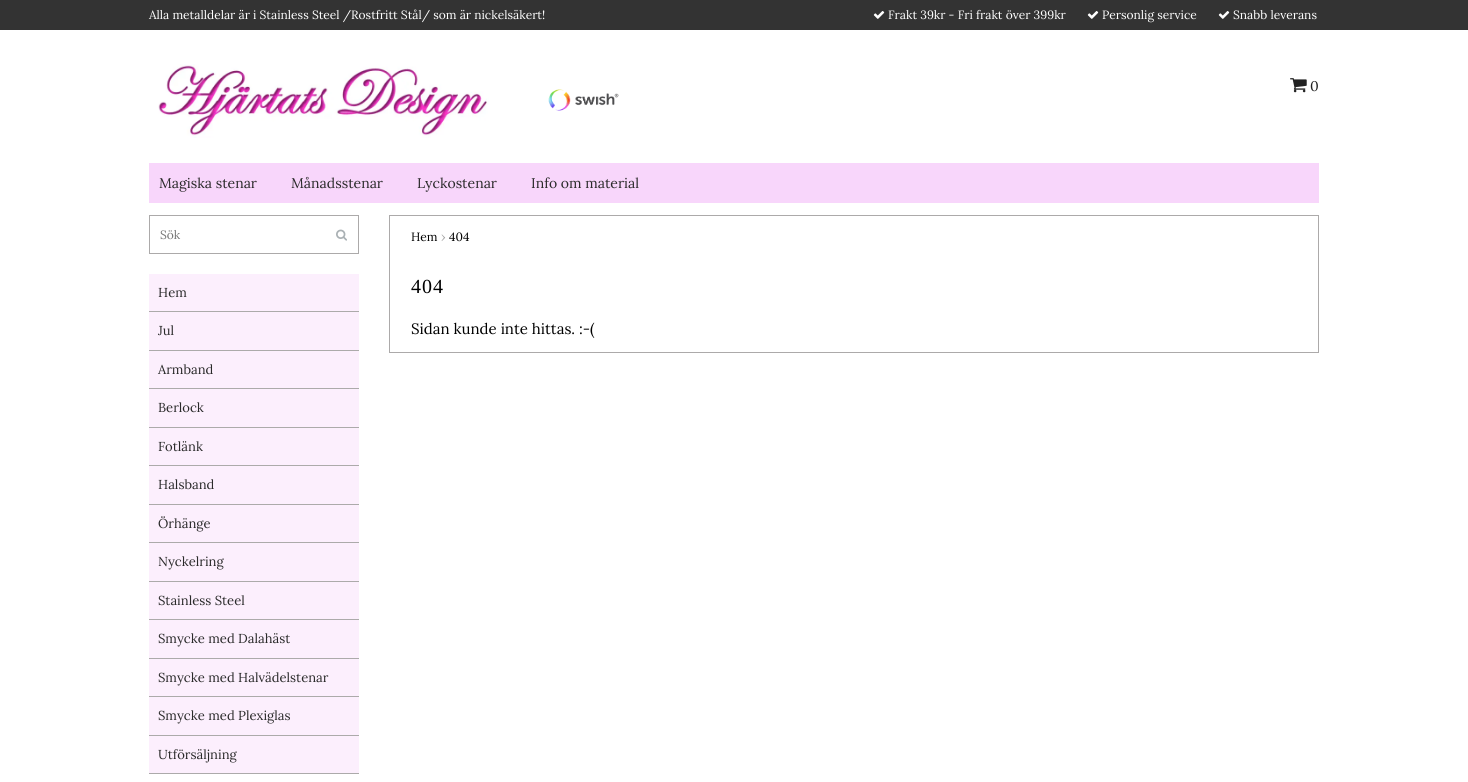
#include <cairo.h>
#include <math.h>
#include <stddef.h>


static void spaced_text(cairo_t *cr, double x, double y, const char *s, double letter, double word) {
    cairo_move_to(cr, x, y);
    while (*s) {
        char ch[5] = {0};
        int n = 0;
        do ch[n++] = *s++; while ((*s & 0xC0) == 0x80);
        cairo_show_text(cr, ch);
        cairo_rel_move_to(cr, letter + word * (*ch == ' '), 0);
    }
}

static void picture(cairo_t *cr, const char *path, double x, double y, double w, double h) {
    cairo_surface_t *image = cairo_image_surface_create_from_png(path);
    cairo_save(cr);
    cairo_set_source_surface(cr, image, x, y);
    cairo_rectangle(cr, x, y, w, h);
    cairo_fill(cr);
    cairo_restore(cr);
    cairo_surface_destroy(image);
}

int main(void) {
    cairo_surface_t *surface = cairo_image_surface_create(CAIRO_FORMAT_RGB24, 1468, 782);
    cairo_t *cr = cairo_create(surface);
    cairo_font_options_t *options = cairo_font_options_create();
    cairo_font_options_set_hint_metrics(options, CAIRO_HINT_METRICS_OFF);
    cairo_font_options_set_hint_style(options, CAIRO_HINT_STYLE_NONE);
    cairo_set_font_options(cr, options);
    cairo_set_miter_limit(cr, 4);
    cairo_set_source_rgb(cr, 1, 1, 1);
    cairo_paint(cr);
    cairo_set_source_rgb(cr, 0.2, 0.2, 0.2);
    cairo_rectangle(cr, 0, 0, 1468, 30);
    cairo_fill(cr);
    cairo_select_font_face(cr, "Lora", CAIRO_FONT_SLANT_NORMAL, CAIRO_FONT_WEIGHT_NORMAL);
    cairo_set_font_size(cr, 12);
    cairo_set_source_rgb(cr, 1, 1, 1);
    cairo_move_to(cr, 149, 19);
    cairo_show_text(cr, "Alla metalldelar är i Stainless Steel /Rostfritt Stål/ som är nickelsäkert!");
    picture(cr, "img1.png", 873, 11, 12, 8);
    cairo_move_to(cr, 888, 19);
    cairo_show_text(cr, "Frakt 39kr - Fri frakt över 399kr");
    picture(cr, "img1.png", 1087, 11, 12, 8);
    cairo_move_to(cr, 1102, 19);
    cairo_show_text(cr, "Personlig service");
    picture(cr, "img1.png", 1218, 11, 12, 8);
    cairo_move_to(cr, 1233, 19);
    cairo_show_text(cr, "Snabb leverans");
    picture(cr, "img2.png", 158, 64, 331, 74);
    picture(cr, "img3.png", 548, 89, 71, 22);
    picture(cr, "img4.png", 1290, 78, 17, 15);
    cairo_set_font_size(cr, 14);
    cairo_set_source_rgb(cr, 0.133, 0.133, 0.133);
    cairo_move_to(cr, 1310, 91);
    cairo_show_text(cr, "0");
    cairo_set_source_rgb(cr, 0.969, 0.839, 0.984);
    cairo_rectangle(cr, 149, 163, 1170, 40);
    cairo_fill(cr);
    cairo_set_source_rgb(cr, 0.165, 0.165, 0.165);
    cairo_move_to(cr, 159, 188);
    cairo_show_text(cr, "Magiska stenar");
    cairo_move_to(cr, 291, 188);
    cairo_show_text(cr, "Månadsstenar");
    cairo_move_to(cr, 417, 188);
    cairo_show_text(cr, "Lyckostenar");
    cairo_move_to(cr, 531, 188);
    cairo_show_text(cr, "Info om material");
    cairo_rectangle(cr, 149.5, 215.5, 209, 38);
    cairo_set_source_rgb(cr, 0.675, 0.667, 0.667);
    cairo_set_line_width(cr, 1);
    cairo_stroke(cr);
    cairo_set_font_size(cr, 12);
    cairo_set_source_rgb(cr, 0.459, 0.459, 0.459);
    cairo_move_to(cr, 160, 239);
    cairo_show_text(cr, "Sök");
    picture(cr, "img5.png", 336, 229, 11, 12);
    cairo_set_source_rgb(cr, 0.988, 0.937, 0.992);
    cairo_rectangle(cr, 149, 274, 210, 37);
    cairo_fill(cr);
    cairo_set_source_rgb(cr, 0.675, 0.667, 0.667);
    cairo_rectangle(cr, 149, 311, 210, 1);
    cairo_fill(cr);
    cairo_set_font_size(cr, 13);
    cairo_set_source_rgb(cr, 0.165, 0.165, 0.165);
    cairo_move_to(cr, 158, 297);
    cairo_show_text(cr, "Hem");
    cairo_set_source_rgb(cr, 0.988, 0.937, 0.992);
    cairo_rectangle(cr, 149, 312, 210, 38);
    cairo_fill(cr);
    cairo_set_source_rgb(cr, 0.675, 0.667, 0.667);
    cairo_rectangle(cr, 149, 350, 210, 1);
    cairo_fill(cr);
    cairo_set_source_rgb(cr, 0.165, 0.165, 0.165);
    cairo_move_to(cr, 158, 335);
    cairo_show_text(cr, "Jul");
    cairo_set_source_rgb(cr, 0.988, 0.937, 0.992);
    cairo_rectangle(cr, 149, 351, 210, 37);
    cairo_fill(cr);
    cairo_set_source_rgb(cr, 0.675, 0.667, 0.667);
    cairo_rectangle(cr, 149, 388, 210, 1);
    cairo_fill(cr);
    cairo_set_source_rgb(cr, 0.165, 0.165, 0.165);
    cairo_move_to(cr, 158, 374);
    cairo_show_text(cr, "Armband");
    cairo_set_source_rgb(cr, 0.988, 0.937, 0.992);
    cairo_rectangle(cr, 149, 389, 210, 38);
    cairo_fill(cr);
    cairo_set_source_rgb(cr, 0.675, 0.667, 0.667);
    cairo_rectangle(cr, 149, 427, 210, 1);
    cairo_fill(cr);
    cairo_set_source_rgb(cr, 0.165, 0.165, 0.165);
    cairo_move_to(cr, 158, 412);
    cairo_show_text(cr, "Berlock");
    cairo_set_source_rgb(cr, 0.988, 0.937, 0.992);
    cairo_rectangle(cr, 149, 428, 210, 37);
    cairo_fill(cr);
    cairo_set_source_rgb(cr, 0.675, 0.667, 0.667);
    cairo_rectangle(cr, 149, 465, 210, 1);
    cairo_fill(cr);
    cairo_set_source_rgb(cr, 0.165, 0.165, 0.165);
    cairo_move_to(cr, 158, 451);
    cairo_show_text(cr, "Fotlänk");
    cairo_set_source_rgb(cr, 0.988, 0.937, 0.992);
    cairo_rectangle(cr, 149, 466, 210, 38);
    cairo_fill(cr);
    cairo_set_source_rgb(cr, 0.675, 0.667, 0.667);
    cairo_rectangle(cr, 149, 504, 210, 1);
    cairo_fill(cr);
    cairo_set_source_rgb(cr, 0.165, 0.165, 0.165);
    cairo_move_to(cr, 158, 489);
    cairo_show_text(cr, "Halsband");
    cairo_set_source_rgb(cr, 0.988, 0.937, 0.992);
    cairo_rectangle(cr, 149, 505, 210, 37);
    cairo_fill(cr);
    cairo_set_source_rgb(cr, 0.675, 0.667, 0.667);
    cairo_rectangle(cr, 149, 542, 210, 1);
    cairo_fill(cr);
    cairo_set_source_rgb(cr, 0.165, 0.165, 0.165);
    cairo_move_to(cr, 158, 528);
    cairo_show_text(cr, "Örhänge");
    cairo_set_source_rgb(cr, 0.988, 0.937, 0.992);
    cairo_rectangle(cr, 149, 543, 210, 38);
    cairo_fill(cr);
    cairo_set_source_rgb(cr, 0.675, 0.667, 0.667);
    cairo_rectangle(cr, 149, 581, 210, 1);
    cairo_fill(cr);
    cairo_set_source_rgb(cr, 0.165, 0.165, 0.165);
    cairo_move_to(cr, 158, 566);
    cairo_show_text(cr, "Nyckelring");
    cairo_set_source_rgb(cr, 0.988, 0.937, 0.992);
    cairo_rectangle(cr, 149, 582, 210, 37);
    cairo_fill(cr);
    cairo_set_source_rgb(cr, 0.675, 0.667, 0.667);
    cairo_rectangle(cr, 149, 619, 210, 1);
    cairo_fill(cr);
    cairo_set_source_rgb(cr, 0.165, 0.165, 0.165);
    cairo_move_to(cr, 158, 605);
    cairo_show_text(cr, "Stainless Steel");
    cairo_set_source_rgb(cr, 0.988, 0.937, 0.992);
    cairo_rectangle(cr, 149, 620, 210, 38);
    cairo_fill(cr);
    cairo_set_source_rgb(cr, 0.675, 0.667, 0.667);
    cairo_rectangle(cr, 149, 658, 210, 1);
    cairo_fill(cr);
    cairo_set_source_rgb(cr, 0.165, 0.165, 0.165);
    cairo_move_to(cr, 158, 643);
    cairo_show_text(cr, "Smycke med Dalahäst");
    cairo_set_source_rgb(cr, 0.988, 0.937, 0.992);
    cairo_rectangle(cr, 149, 659, 210, 37);
    cairo_fill(cr);
    cairo_set_source_rgb(cr, 0.675, 0.667, 0.667);
    cairo_rectangle(cr, 149, 696, 210, 1);
    cairo_fill(cr);
    cairo_set_source_rgb(cr, 0.165, 0.165, 0.165);
    cairo_move_to(cr, 158, 682);
    cairo_show_text(cr, "Smycke med Halvädelstenar");
    cairo_set_source_rgb(cr, 0.988, 0.937, 0.992);
    cairo_rectangle(cr, 149, 697, 210, 38);
    cairo_fill(cr);
    cairo_set_source_rgb(cr, 0.675, 0.667, 0.667);
    cairo_rectangle(cr, 149, 735, 210, 1);
    cairo_fill(cr);
    cairo_set_source_rgb(cr, 0.165, 0.165, 0.165);
    cairo_move_to(cr, 158, 720);
    cairo_show_text(cr, "Smycke med Plexiglas");
    cairo_set_source_rgb(cr, 0.988, 0.937, 0.992);
    cairo_rectangle(cr, 149, 736, 210, 37);
    cairo_fill(cr);
    cairo_set_source_rgb(cr, 0.675, 0.667, 0.667);
    cairo_rectangle(cr, 149, 773, 210, 1);
    cairo_fill(cr);
    cairo_set_source_rgb(cr, 0.165, 0.165, 0.165);
    cairo_move_to(cr, 158, 759);
    cairo_show_text(cr, "Utförsäljning");
    cairo_rectangle(cr, 389.5, 215.5, 929, 137);
    cairo_set_source_rgb(cr, 0.675, 0.667, 0.667);
    cairo_stroke(cr);
    cairo_set_font_size(cr, 12);
    cairo_set_source_rgb(cr, 0, 0, 0);
    cairo_move_to(cr, 411, 241);
    cairo_show_text(cr, "Hem");
    cairo_set_source_rgb(cr, 0.631, 0.631, 0.631);
    cairo_move_to(cr, 441, 241);
    cairo_show_text(cr, "›");
    cairo_set_source_rgb(cr, 0, 0, 0);
    cairo_move_to(cr, 449, 241);
    cairo_show_text(cr, "404");
    cairo_select_font_face(cr, "Liberation Serif", CAIRO_FONT_SLANT_NORMAL, CAIRO_FONT_WEIGHT_NORMAL);
    cairo_set_font_size(cr, 20);
    spaced_text(cr, 411, 293, "404", 1, 0);
    cairo_select_font_face(cr, "Lora", CAIRO_FONT_SLANT_NORMAL, CAIRO_FONT_WEIGHT_NORMAL);
    cairo_set_font_size(cr, 15);
    cairo_move_to(cr, 411, 334);
    cairo_show_text(cr, "Sidan kunde inte hittas. :-(");
    cairo_surface_write_to_png(surface, "page.png");
    cairo_font_options_destroy(options);
    cairo_destroy(cr);
    cairo_surface_destroy(surface);
    return 0;
}
